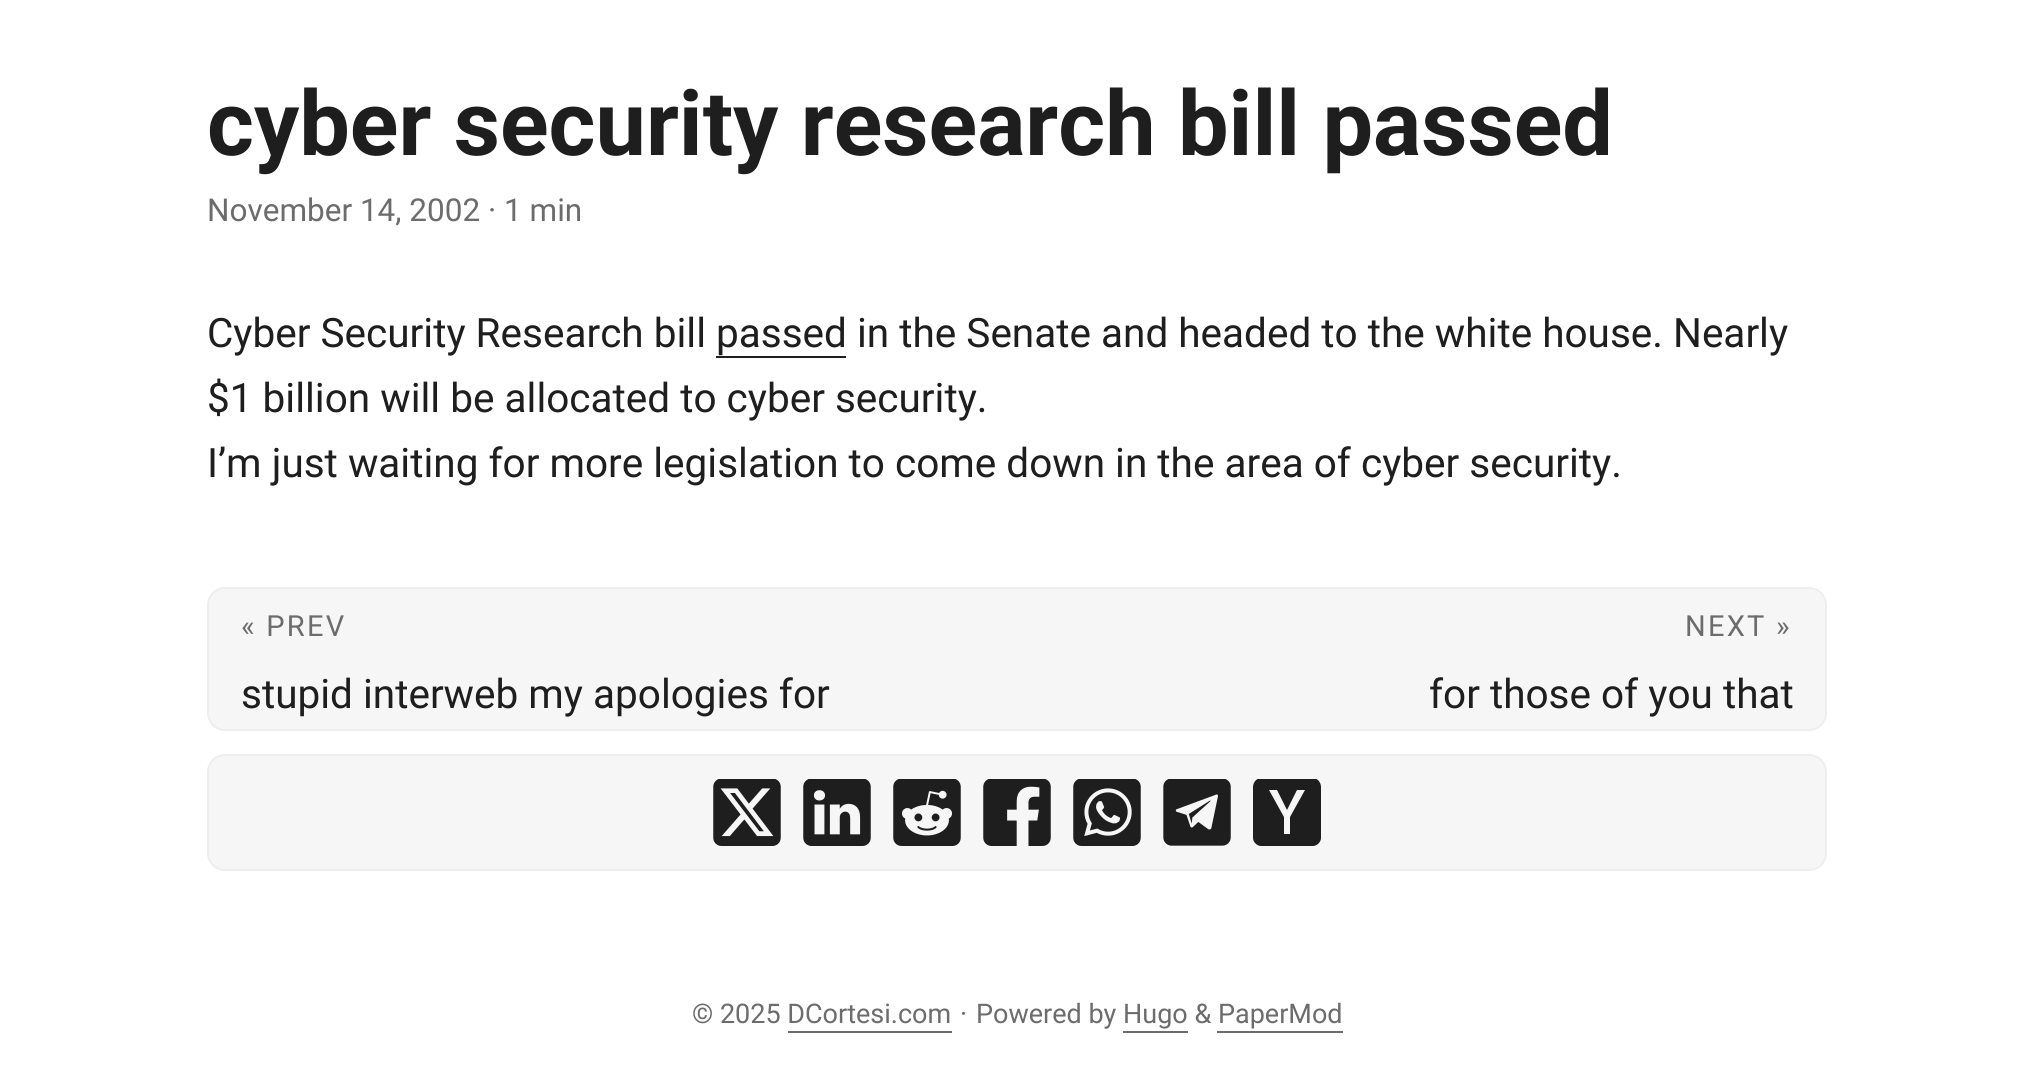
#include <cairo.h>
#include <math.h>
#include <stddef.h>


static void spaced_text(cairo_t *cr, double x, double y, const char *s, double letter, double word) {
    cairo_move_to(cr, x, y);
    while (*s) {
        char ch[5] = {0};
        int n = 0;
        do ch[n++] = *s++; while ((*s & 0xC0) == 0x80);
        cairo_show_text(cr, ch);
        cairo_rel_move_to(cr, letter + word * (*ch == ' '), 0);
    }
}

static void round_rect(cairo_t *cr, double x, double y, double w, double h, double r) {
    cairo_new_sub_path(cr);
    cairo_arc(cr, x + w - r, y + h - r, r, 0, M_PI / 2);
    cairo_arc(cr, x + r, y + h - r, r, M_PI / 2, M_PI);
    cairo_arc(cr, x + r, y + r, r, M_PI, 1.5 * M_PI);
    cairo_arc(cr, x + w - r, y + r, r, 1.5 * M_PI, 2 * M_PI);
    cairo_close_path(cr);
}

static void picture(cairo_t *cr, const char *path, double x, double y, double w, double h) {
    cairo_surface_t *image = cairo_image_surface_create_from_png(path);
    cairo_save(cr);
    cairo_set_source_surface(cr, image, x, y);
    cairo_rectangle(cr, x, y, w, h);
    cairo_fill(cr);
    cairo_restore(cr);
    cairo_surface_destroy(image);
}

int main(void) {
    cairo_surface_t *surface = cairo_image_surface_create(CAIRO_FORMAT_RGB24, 2033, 1081);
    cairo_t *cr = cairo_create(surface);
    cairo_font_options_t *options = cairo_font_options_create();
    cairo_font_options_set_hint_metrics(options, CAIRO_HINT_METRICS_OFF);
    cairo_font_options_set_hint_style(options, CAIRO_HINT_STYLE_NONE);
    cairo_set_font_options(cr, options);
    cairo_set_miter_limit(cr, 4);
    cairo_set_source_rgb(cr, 1, 1, 1);
    cairo_paint(cr);
    cairo_select_font_face(cr, "Roboto", CAIRO_FONT_SLANT_NORMAL, CAIRO_FONT_WEIGHT_BOLD);
    cairo_set_font_size(cr, 90);
    cairo_set_source_rgb(cr, 0.118, 0.118, 0.118);
    cairo_move_to(cr, 207, 155);
    cairo_show_text(cr, "cyber security research bill passed");
    cairo_select_font_face(cr, "Roboto", CAIRO_FONT_SLANT_NORMAL, CAIRO_FONT_WEIGHT_NORMAL);
    cairo_set_font_size(cr, 31.5);
    cairo_set_source_rgb(cr, 0.424, 0.424, 0.424);
    cairo_move_to(cr, 207, 221);
    cairo_show_text(cr, "November 14, 2002 · 1 min");
    cairo_set_font_size(cr, 40.5);
    cairo_set_source_rgb(cr, 0.118, 0.118, 0.118);
    cairo_move_to(cr, 207, 347);
    cairo_show_text(cr, "Cyber Security Research bill");
    cairo_move_to(cr, 716, 347);
    cairo_show_text(cr, "passed");
    cairo_rectangle(cr, 716, 356, 130, 2);
    cairo_fill(cr);
    cairo_move_to(cr, 857, 347);
    cairo_show_text(cr, "in the Senate and headed to the white house. Nearly");
    cairo_move_to(cr, 207, 412);
    cairo_show_text(cr, "$1 billion will be allocated to cyber security.");
    cairo_move_to(cr, 207, 477);
    cairo_show_text(cr, "I’m just waiting for more legislation to come down in the area of cyber security.");
    cairo_set_source_rgb(cr, 0.961, 0.961, 0.961);
    round_rect(cr, 208, 588, 1618, 142, 17);
    cairo_fill_preserve(cr);
    cairo_set_source_rgb(cr, 0.933, 0.933, 0.933);
    cairo_stroke(cr);
    cairo_set_font_size(cr, 29);
    cairo_set_source_rgb(cr, 0.424, 0.424, 0.424);
    spaced_text(cr, 241, 636, "« PREV", 2.25, 0);
    cairo_set_font_size(cr, 40.5);
    cairo_set_source_rgb(cr, 0.118, 0.118, 0.118);
    cairo_move_to(cr, 241, 708);
    cairo_show_text(cr, "stupid interweb my apologies for");
    cairo_set_font_size(cr, 29);
    cairo_set_source_rgb(cr, 0.424, 0.424, 0.424);
    spaced_text(cr, 1685, 636, "NEXT »", 2.25, 0);
    cairo_set_font_size(cr, 40.5);
    cairo_set_source_rgb(cr, 0.118, 0.118, 0.118);
    cairo_move_to(cr, 1429, 708);
    cairo_show_text(cr, "for those of you that");
    cairo_set_source_rgb(cr, 0.961, 0.961, 0.961);
    round_rect(cr, 208, 755, 1618, 115, 17);
    cairo_fill_preserve(cr);
    cairo_set_source_rgb(cr, 0.933, 0.933, 0.933);
    cairo_stroke(cr);
    picture(cr, "img1.png", 713, 779, 68, 67);
    picture(cr, "img2.png", 803, 779, 68, 67);
    picture(cr, "img3.png", 893, 779, 68, 67);
    picture(cr, "img4.png", 983, 779, 68, 67);
    picture(cr, "img5.png", 1073, 779, 68, 67);
    picture(cr, "img6.png", 1163, 779, 68, 67);
    cairo_save(cr);
    cairo_rectangle(cr, 1253, 779, 68, 67);
    cairo_clip(cr);
    cairo_set_source_rgb(cr, 0.118, 0.118, 0.118);
    cairo_new_path(cr);
    cairo_move_to(cr, 1313, 778);
    cairo_curve_to(cr, 1317, 778, 1321, 782, 1321, 787);
    cairo_line_to(cr, 1321, 838);
    cairo_curve_to(cr, 1321, 842, 1317, 846, 1313, 846);
    cairo_line_to(cr, 1261, 846);
    cairo_curve_to(cr, 1257, 846, 1253, 842, 1253, 838);
    cairo_line_to(cr, 1253, 787);
    cairo_curve_to(cr, 1253, 782, 1257, 778, 1261, 778);
    cairo_close_path(cr);
    cairo_move_to(cr, 1277, 790);
    cairo_line_to(cr, 1269, 790);
    cairo_line_to(cr, 1284, 817);
    cairo_line_to(cr, 1284, 834);
    cairo_line_to(cr, 1290, 834);
    cairo_line_to(cr, 1290, 817);
    cairo_line_to(cr, 1305, 790);
    cairo_line_to(cr, 1297, 790);
    cairo_line_to(cr, 1287, 810);
    cairo_close_path(cr);
    cairo_fill(cr);
    cairo_restore(cr);
    cairo_set_font_size(cr, 27);
    cairo_set_source_rgb(cr, 0.424, 0.424, 0.424);
    cairo_move_to(cr, 692, 1023);
    cairo_show_text(cr, "© 2025 DCortesi.com");
    cairo_rectangle(cr, 788, 1031, 164, 2);
    cairo_fill(cr);
    cairo_move_to(cr, 960, 1023);
    cairo_show_text(cr, "·");
    cairo_move_to(cr, 976, 1023);
    cairo_show_text(cr, "Powered by Hugo & PaperMod");
    cairo_rectangle(cr, 1123, 1031, 65, 2);
    cairo_fill(cr);
    cairo_rectangle(cr, 1217, 1031, 126, 2);
    cairo_fill(cr);
    cairo_surface_write_to_png(surface, "page.png");
    cairo_font_options_destroy(options);
    cairo_destroy(cr);
    cairo_surface_destroy(surface);
    return 0;
}
